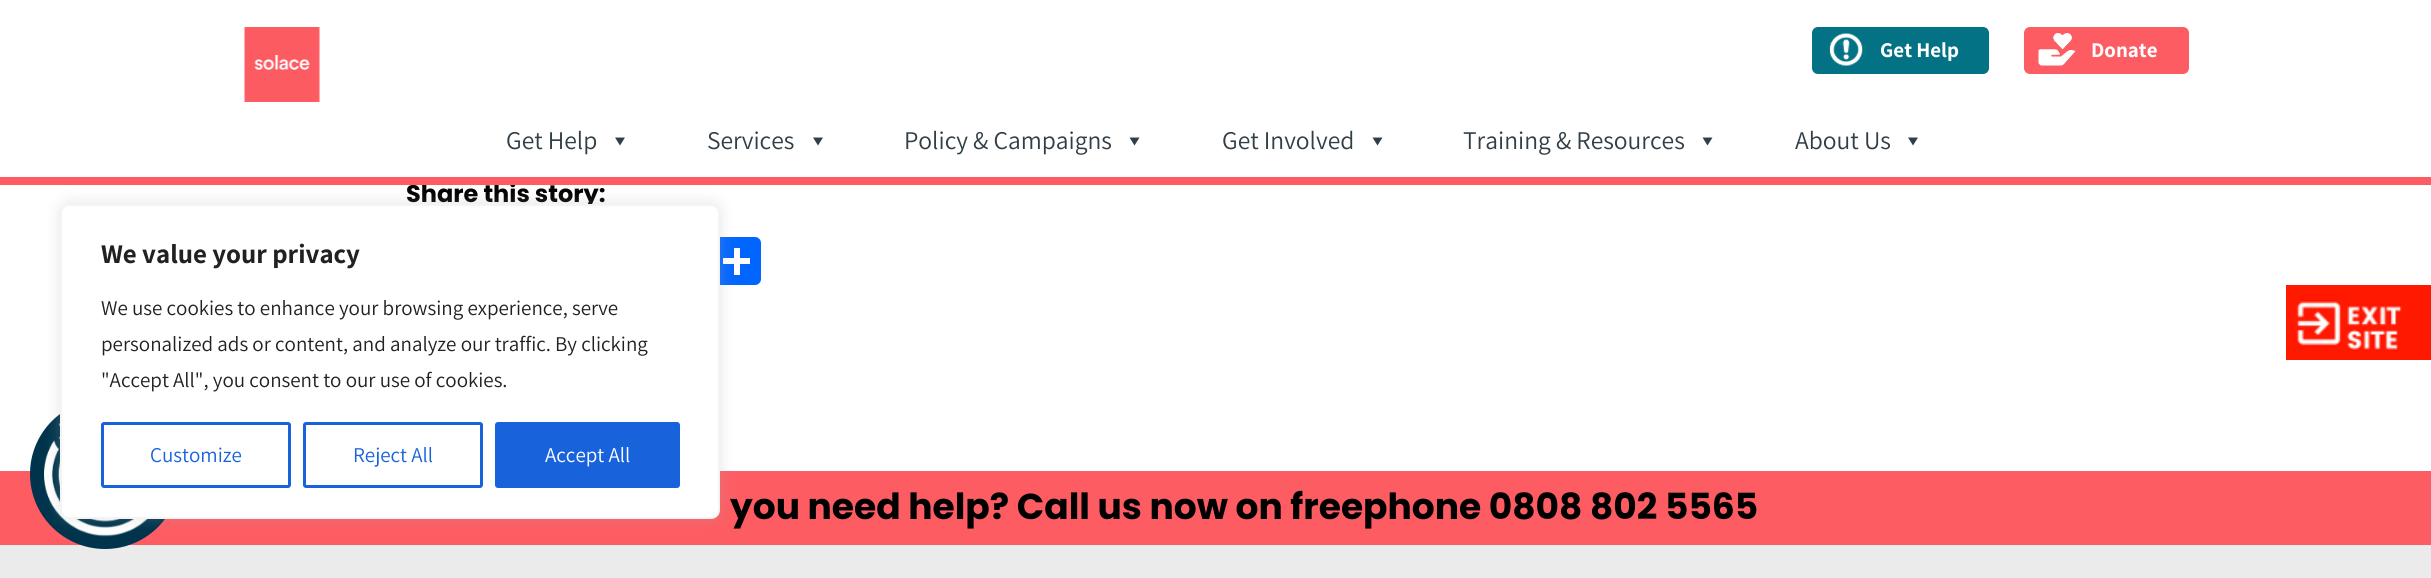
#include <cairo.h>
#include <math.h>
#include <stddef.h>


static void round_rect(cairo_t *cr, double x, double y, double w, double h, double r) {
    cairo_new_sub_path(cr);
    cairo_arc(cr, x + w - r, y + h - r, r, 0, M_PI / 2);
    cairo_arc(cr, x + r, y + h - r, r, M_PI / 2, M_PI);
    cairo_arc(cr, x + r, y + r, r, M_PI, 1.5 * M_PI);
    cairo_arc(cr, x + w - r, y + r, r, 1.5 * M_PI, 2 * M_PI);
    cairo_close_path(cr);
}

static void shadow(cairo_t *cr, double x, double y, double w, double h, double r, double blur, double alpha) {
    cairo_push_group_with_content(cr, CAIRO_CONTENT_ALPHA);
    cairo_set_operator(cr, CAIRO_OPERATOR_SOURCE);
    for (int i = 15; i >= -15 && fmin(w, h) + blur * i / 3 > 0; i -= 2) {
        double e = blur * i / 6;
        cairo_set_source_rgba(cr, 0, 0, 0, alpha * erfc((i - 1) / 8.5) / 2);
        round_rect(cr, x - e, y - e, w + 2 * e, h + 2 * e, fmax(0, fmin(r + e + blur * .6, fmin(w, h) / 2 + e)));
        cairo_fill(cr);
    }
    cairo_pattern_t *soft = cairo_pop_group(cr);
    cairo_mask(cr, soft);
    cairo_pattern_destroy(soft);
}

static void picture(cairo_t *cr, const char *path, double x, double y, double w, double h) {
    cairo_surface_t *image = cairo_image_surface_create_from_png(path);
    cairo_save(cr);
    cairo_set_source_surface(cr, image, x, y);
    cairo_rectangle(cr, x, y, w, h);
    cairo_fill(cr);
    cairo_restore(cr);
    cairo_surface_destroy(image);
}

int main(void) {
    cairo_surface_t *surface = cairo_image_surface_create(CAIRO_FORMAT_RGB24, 2431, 578);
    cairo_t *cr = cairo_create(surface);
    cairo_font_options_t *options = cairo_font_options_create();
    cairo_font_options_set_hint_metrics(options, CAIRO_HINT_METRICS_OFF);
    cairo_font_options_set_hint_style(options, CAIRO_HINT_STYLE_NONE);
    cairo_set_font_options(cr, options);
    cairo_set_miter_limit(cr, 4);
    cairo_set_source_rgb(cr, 1, 1, 1);
    cairo_paint(cr);
    cairo_select_font_face(cr, "Poppins", CAIRO_FONT_SLANT_NORMAL, CAIRO_FONT_WEIGHT_BOLD);
    cairo_set_font_size(cr, 24);
    cairo_set_source_rgb(cr, 0, 0, 0);
    cairo_move_to(cr, 406, 202);
    cairo_show_text(cr, "Share this story:");
    cairo_set_source_rgb(cr, 0.992, 0.361, 0.384);
    cairo_rectangle(cr, 0, 177, 2431, 8);
    cairo_fill(cr);
    cairo_set_source_rgb(cr, 0.004, 0.4, 1);
    round_rect(cr, 713, 237, 48, 48, 6);
    cairo_fill(cr);
    cairo_set_source_rgb(cr, 1, 1, 1);
    cairo_rectangle(cr, 734, 248, 6, 27);
    cairo_fill(cr);
    cairo_rectangle(cr, 723, 258, 27, 6);
    cairo_fill(cr);
    cairo_set_source_rgb(cr, 0.992, 0.361, 0.384);
    cairo_rectangle(cr, 0, 471, 2431, 74);
    cairo_fill(cr);
    cairo_set_source_rgb(cr, 0.918, 0.918, 0.918);
    cairo_rectangle(cr, 0, 545, 2431, 33);
    cairo_fill(cr);
    cairo_set_source_rgb(cr, 0, 0.204, 0.298);
    cairo_arc(cr, 105, 474, 75, 0, 2 * M_PI);
    cairo_fill(cr);
    picture(cr, "img5.png", 44, 416, 120, 121);
    cairo_set_source_rgb(cr, 0.675, 0.671, 0.671);
    shadow(cr, 60, 203, 660, 315, 9, 7.5, 0.3);
    cairo_set_source_rgb(cr, 1, 1, 1);
    round_rect(cr, 61, 205, 658, 313, 8);
    cairo_fill_preserve(cr);
    cairo_set_source_rgb(cr, 0.957, 0.957, 0.957);
    cairo_stroke(cr);
    cairo_select_font_face(cr, "Assistant", CAIRO_FONT_SLANT_NORMAL, CAIRO_FONT_WEIGHT_BOLD);
    cairo_set_font_size(cr, 27);
    cairo_set_source_rgb(cr, 0.129, 0.129, 0.129);
    cairo_move_to(cr, 101, 263);
    cairo_show_text(cr, "We value your privacy");
    cairo_select_font_face(cr, "Assistant", CAIRO_FONT_SLANT_NORMAL, CAIRO_FONT_WEIGHT_NORMAL);
    cairo_set_font_size(cr, 21);
    cairo_move_to(cr, 101, 315);
    cairo_show_text(cr, "We use cookies to enhance your browsing experience, serve");
    cairo_move_to(cr, 101, 351);
    cairo_show_text(cr, "personalized ads or content, and analyze our traffic. By clicking");
    cairo_move_to(cr, 101, 387);
    cairo_show_text(cr, "\"Accept All\", you consent to our use of cookies.");
    round_rect(cr, 102.5, 423.5, 187, 63, 1.5);
    cairo_set_source_rgb(cr, 0.094, 0.388, 0.863);
    cairo_set_line_width(cr, 3);
    cairo_stroke(cr);
    cairo_move_to(cr, 150, 462);
    cairo_show_text(cr, "Customize");
    round_rect(cr, 304.5, 423.5, 177, 63, 1.5);
    cairo_stroke(cr);
    cairo_move_to(cr, 353, 462);
    cairo_show_text(cr, "Reject All");
    round_rect(cr, 496.5, 423.5, 182, 63, 1.5);
    cairo_fill_preserve(cr);
    cairo_stroke(cr);
    cairo_set_source_rgb(cr, 1, 1, 1);
    cairo_move_to(cr, 545, 462);
    cairo_show_text(cr, "Accept All");
    picture(cr, "img1.png", 244, 27, 76, 75);
    cairo_set_source_rgb(cr, 0.008, 0.447, 0.518);
    round_rect(cr, 1812, 27, 177, 47, 6);
    cairo_fill(cr);
    picture(cr, "img2.png", 1829, 33, 34, 33);
    cairo_select_font_face(cr, "Assistant", CAIRO_FONT_SLANT_NORMAL, CAIRO_FONT_WEIGHT_BOLD);
    cairo_set_source_rgb(cr, 1, 1, 1);
    cairo_move_to(cr, 1880, 57);
    cairo_show_text(cr, "Get Help");
    cairo_set_source_rgb(cr, 0.992, 0.361, 0.384);
    round_rect(cr, 2024, 27, 165, 47, 6);
    cairo_fill(cr);
    picture(cr, "img3.png", 2038, 33, 38, 33);
    cairo_set_source_rgb(cr, 1, 1, 1);
    cairo_move_to(cr, 2091, 57);
    cairo_show_text(cr, "Donate");
    cairo_select_font_face(cr, "Assistant", CAIRO_FONT_SLANT_NORMAL, CAIRO_FONT_WEIGHT_NORMAL);
    cairo_set_font_size(cr, 25.5);
    cairo_set_source_rgb(cr, 0.192, 0.243, 0.275);
    cairo_move_to(cr, 506, 149);
    cairo_show_text(cr, "Get Help");
    cairo_new_path(cr);
    cairo_move_to(cr, 625, 137.5);
    cairo_line_to(cr, 620, 145.5);
    cairo_line_to(cr, 615, 137.5);
    cairo_close_path(cr);
    cairo_fill(cr);
    cairo_move_to(cr, 707, 149);
    cairo_show_text(cr, "Services");
    cairo_new_path(cr);
    cairo_move_to(cr, 823, 137.5);
    cairo_line_to(cr, 818, 145.5);
    cairo_line_to(cr, 813, 137.5);
    cairo_close_path(cr);
    cairo_fill(cr);
    cairo_move_to(cr, 904, 149);
    cairo_show_text(cr, "Policy & Campaigns");
    cairo_new_path(cr);
    cairo_move_to(cr, 1139.5, 137.5);
    cairo_line_to(cr, 1134.5, 145.5);
    cairo_line_to(cr, 1129.5, 137.5);
    cairo_close_path(cr);
    cairo_fill(cr);
    cairo_move_to(cr, 1222, 149);
    cairo_show_text(cr, "Get Involved");
    cairo_new_path(cr);
    cairo_move_to(cr, 1382.5, 137.5);
    cairo_line_to(cr, 1377.5, 145.5);
    cairo_line_to(cr, 1372.5, 137.5);
    cairo_close_path(cr);
    cairo_fill(cr);
    cairo_move_to(cr, 1463, 149);
    cairo_show_text(cr, "Training & Resources");
    cairo_new_path(cr);
    cairo_move_to(cr, 1712.5, 137.5);
    cairo_line_to(cr, 1707.5, 145.5);
    cairo_line_to(cr, 1702.5, 137.5);
    cairo_close_path(cr);
    cairo_fill(cr);
    cairo_move_to(cr, 1795, 149);
    cairo_show_text(cr, "About Us");
    cairo_new_path(cr);
    cairo_move_to(cr, 1918, 137.5);
    cairo_line_to(cr, 1913, 145.5);
    cairo_line_to(cr, 1908, 137.5);
    cairo_close_path(cr);
    cairo_fill(cr);
    cairo_select_font_face(cr, "Poppins", CAIRO_FONT_SLANT_NORMAL, CAIRO_FONT_WEIGHT_BOLD);
    cairo_set_font_size(cr, 36);
    cairo_set_source_rgb(cr, 0, 0, 0);
    cairo_move_to(cr, 730, 519);
    cairo_show_text(cr, "you need help? Call us now on freephone 0808 802 5565");
    picture(cr, "img4.png", 2286, 285, 145, 75);
    cairo_surface_write_to_png(surface, "page.png");
    cairo_font_options_destroy(options);
    cairo_destroy(cr);
    cairo_surface_destroy(surface);
    return 0;
}
